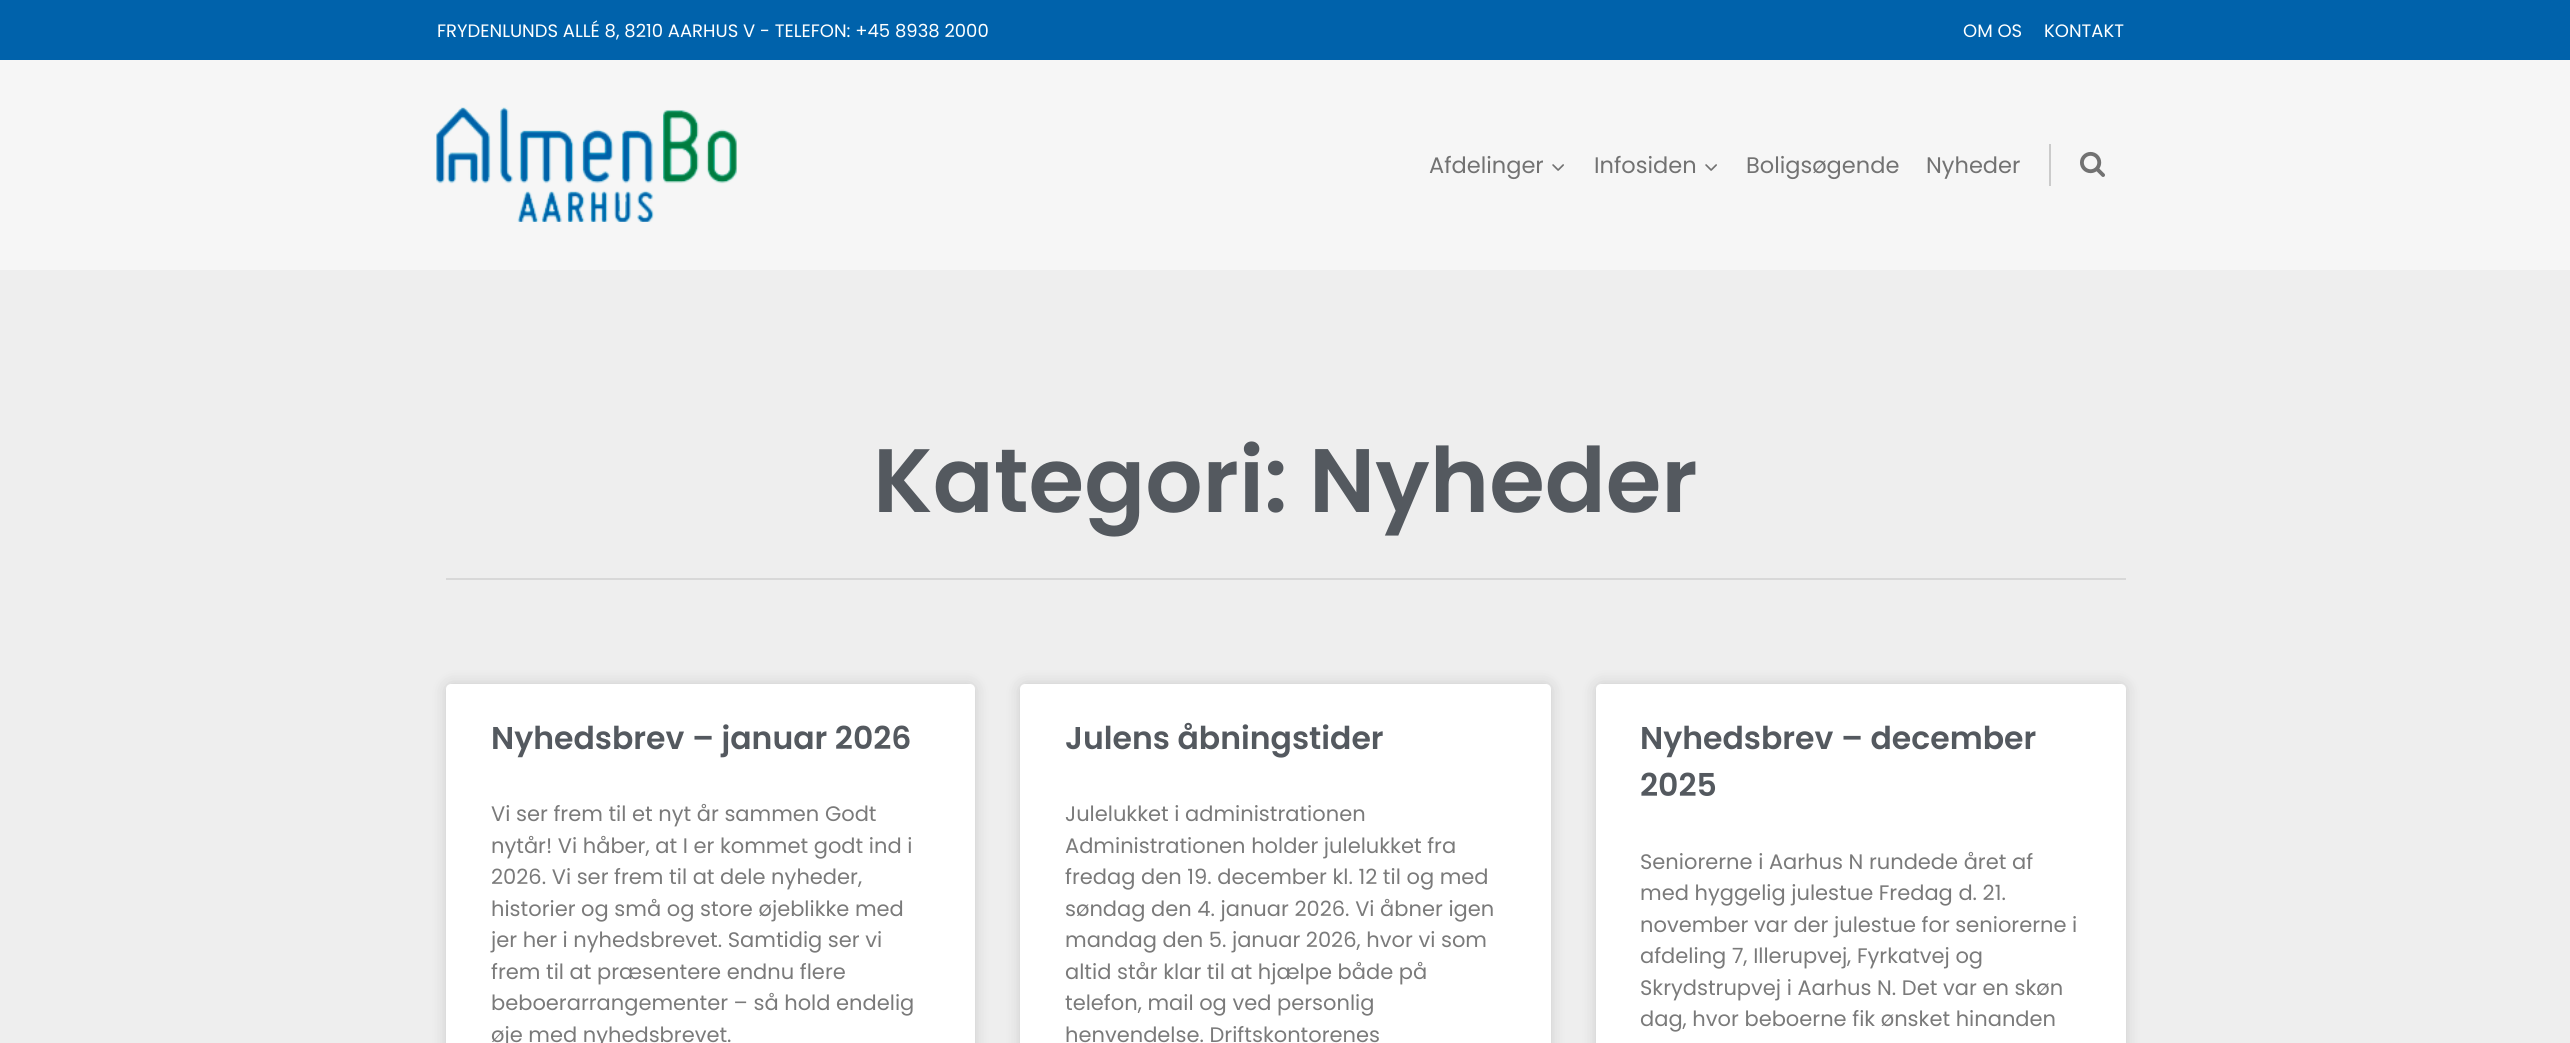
#include <cairo.h>
#include <math.h>
#include <stddef.h>


static void round_rect(cairo_t *cr, double x, double y, double w, double h, double r) {
    cairo_new_sub_path(cr);
    cairo_arc(cr, x + w - r, y + h - r, r, 0, M_PI / 2);
    cairo_arc(cr, x + r, y + h - r, r, M_PI / 2, M_PI);
    cairo_arc(cr, x + r, y + r, r, M_PI, 1.5 * M_PI);
    cairo_arc(cr, x + w - r, y + r, r, 1.5 * M_PI, 2 * M_PI);
    cairo_close_path(cr);
}

static void shadow(cairo_t *cr, double x, double y, double w, double h, double r, double blur, double alpha) {
    cairo_push_group_with_content(cr, CAIRO_CONTENT_ALPHA);
    cairo_set_operator(cr, CAIRO_OPERATOR_SOURCE);
    for (int i = 15; i >= -15 && fmin(w, h) + blur * i / 3 > 0; i -= 2) {
        double e = blur * i / 6;
        cairo_set_source_rgba(cr, 0, 0, 0, alpha * erfc((i - 1) / 8.5) / 2);
        round_rect(cr, x - e, y - e, w + 2 * e, h + 2 * e, fmax(0, fmin(r + e + blur * .6, fmin(w, h) / 2 + e)));
        cairo_fill(cr);
    }
    cairo_pattern_t *soft = cairo_pop_group(cr);
    cairo_mask(cr, soft);
    cairo_pattern_destroy(soft);
}

static void picture(cairo_t *cr, const char *path, double x, double y, double w, double h) {
    cairo_surface_t *image = cairo_image_surface_create_from_png(path);
    cairo_save(cr);
    cairo_set_source_surface(cr, image, x, y);
    cairo_rectangle(cr, x, y, w, h);
    cairo_fill(cr);
    cairo_restore(cr);
    cairo_surface_destroy(image);
}

int main(void) {
    cairo_surface_t *surface = cairo_image_surface_create(CAIRO_FORMAT_RGB24, 2570, 1043);
    cairo_t *cr = cairo_create(surface);
    cairo_font_options_t *options = cairo_font_options_create();
    cairo_font_options_set_hint_metrics(options, CAIRO_HINT_METRICS_OFF);
    cairo_font_options_set_hint_style(options, CAIRO_HINT_STYLE_NONE);
    cairo_set_font_options(cr, options);
    cairo_set_miter_limit(cr, 4);
    cairo_set_source_rgb(cr, 0.933, 0.933, 0.933);
    cairo_paint(cr);
    cairo_set_source_rgb(cr, 0, 0.384, 0.671);
    cairo_rectangle(cr, 0, 0, 2570, 60);
    cairo_fill(cr);
    cairo_select_font_face(cr, "Poppins", CAIRO_FONT_SLANT_NORMAL, CAIRO_FONT_WEIGHT_NORMAL);
    cairo_set_font_size(cr, 18);
    cairo_set_source_rgb(cr, 1, 1, 1);
    cairo_move_to(cr, 437, 37);
    cairo_show_text(cr, "FRYDENLUNDS ALLÉ 8, 8210 AARHUS V - TELEFON: +45 8938 2000");
    cairo_move_to(cr, 1963, 37);
    cairo_show_text(cr, "OM OS");
    cairo_move_to(cr, 2044, 37);
    cairo_show_text(cr, "KONTAKT");
    cairo_set_source_rgb(cr, 0.961, 0.961, 0.961);
    cairo_rectangle(cr, 0, 60, 2570, 210);
    cairo_fill(cr);
    picture(cr, "img1.png", 436, 107, 301, 115);
    cairo_set_font_size(cr, 22.5);
    cairo_set_source_rgb(cr, 0.447, 0.447, 0.447);
    cairo_move_to(cr, 1429, 173);
    cairo_show_text(cr, "Afdelinger");
    picture(cr, "img2.png", 1552, 164, 12, 7);
    cairo_move_to(cr, 1594, 173);
    cairo_show_text(cr, "Infosiden");
    picture(cr, "img2.png", 1705, 164, 12, 7);
    cairo_move_to(cr, 1746, 173);
    cairo_show_text(cr, "Boligsøgende");
    cairo_move_to(cr, 1926, 173);
    cairo_show_text(cr, "Nyheder");
    cairo_set_source_rgb(cr, 0.796, 0.796, 0.796);
    cairo_rectangle(cr, 2049, 144, 2, 42);
    cairo_fill(cr);
    picture(cr, "img3.png", 2080, 151, 25, 26);
    cairo_select_font_face(cr, "Poppins SemiBold", CAIRO_FONT_SLANT_NORMAL, CAIRO_FONT_WEIGHT_NORMAL);
    cairo_set_font_size(cr, 90);
    cairo_set_source_rgb(cr, 0.329, 0.349, 0.373);
    cairo_move_to(cr, 873, 512);
    cairo_show_text(cr, "Kategori: Nyheder");
    cairo_set_source_rgb(cr, 0.847, 0.847, 0.847);
    cairo_rectangle(cr, 446, 578, 1680, 2);
    cairo_fill(cr);
    cairo_set_source_rgb(cr, 0, 0, 0);
    shadow(cr, 446, 684, 529, 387, 5, 7.5, 0.15);
    cairo_set_source_rgb(cr, 1, 1, 1);
    round_rect(cr, 446, 684, 529, 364, 5);
    cairo_fill(cr);
    cairo_set_font_size(cr, 31.5);
    cairo_set_source_rgb(cr, 0.329, 0.349, 0.373);
    cairo_move_to(cr, 491, 749);
    cairo_show_text(cr, "Nyhedsbrev – januar 2026");
    cairo_select_font_face(cr, "Poppins", CAIRO_FONT_SLANT_NORMAL, CAIRO_FONT_WEIGHT_NORMAL);
    cairo_set_font_size(cr, 21);
    cairo_set_source_rgb(cr, 0.478, 0.478, 0.478);
    cairo_move_to(cr, 491, 821);
    cairo_show_text(cr, "Vi ser frem til et nyt år sammen Godt");
    cairo_move_to(cr, 491, 853);
    cairo_show_text(cr, "nytår! Vi håber, at I er kommet godt ind i");
    cairo_move_to(cr, 491, 884);
    cairo_show_text(cr, "2026. Vi ser frem til at dele nyheder,");
    cairo_move_to(cr, 491, 916);
    cairo_show_text(cr, "historier og små og store øjeblikke med");
    cairo_move_to(cr, 491, 947);
    cairo_show_text(cr, "jer her i nyhedsbrevet. Samtidig ser vi");
    cairo_move_to(cr, 491, 979);
    cairo_show_text(cr, "frem til at præsentere endnu flere");
    cairo_move_to(cr, 491, 1010);
    cairo_show_text(cr, "beboerarrangementer – så hold endelig");
    cairo_move_to(cr, 491, 1042);
    cairo_show_text(cr, "øje med nyhedsbrevet.");
    cairo_set_source_rgb(cr, 0, 0, 0);
    shadow(cr, 1020, 684, 531, 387, 5, 7.5, 0.15);
    cairo_set_source_rgb(cr, 1, 1, 1);
    round_rect(cr, 1020, 684, 531, 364, 5);
    cairo_fill(cr);
    cairo_select_font_face(cr, "Poppins SemiBold", CAIRO_FONT_SLANT_NORMAL, CAIRO_FONT_WEIGHT_NORMAL);
    cairo_set_font_size(cr, 31.5);
    cairo_set_source_rgb(cr, 0.329, 0.349, 0.373);
    cairo_move_to(cr, 1065, 749);
    cairo_show_text(cr, "Julens åbningstider");
    cairo_select_font_face(cr, "Poppins", CAIRO_FONT_SLANT_NORMAL, CAIRO_FONT_WEIGHT_NORMAL);
    cairo_set_font_size(cr, 21);
    cairo_set_source_rgb(cr, 0.478, 0.478, 0.478);
    cairo_move_to(cr, 1065, 821);
    cairo_show_text(cr, "Julelukket i administrationen");
    cairo_move_to(cr, 1065, 853);
    cairo_show_text(cr, "Administrationen holder julelukket fra");
    cairo_move_to(cr, 1065, 884);
    cairo_show_text(cr, "fredag den 19. december kl. 12 til og med");
    cairo_move_to(cr, 1065, 916);
    cairo_show_text(cr, "søndag den 4. januar 2026. Vi åbner igen");
    cairo_move_to(cr, 1065, 947);
    cairo_show_text(cr, "mandag den 5. januar 2026, hvor vi som");
    cairo_move_to(cr, 1065, 979);
    cairo_show_text(cr, "altid står klar til at hjælpe både på");
    cairo_move_to(cr, 1065, 1010);
    cairo_show_text(cr, "telefon, mail og ved personlig");
    cairo_move_to(cr, 1065, 1042);
    cairo_show_text(cr, "henvendelse. Driftskontorenes");
    cairo_set_source_rgb(cr, 0, 0, 0);
    shadow(cr, 1596, 684, 530, 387, 5, 7.5, 0.15);
    cairo_set_source_rgb(cr, 1, 1, 1);
    round_rect(cr, 1596, 684, 530, 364, 5);
    cairo_fill(cr);
    cairo_select_font_face(cr, "Poppins SemiBold", CAIRO_FONT_SLANT_NORMAL, CAIRO_FONT_WEIGHT_NORMAL);
    cairo_set_font_size(cr, 31.5);
    cairo_set_source_rgb(cr, 0.329, 0.349, 0.373);
    cairo_move_to(cr, 1640, 749);
    cairo_show_text(cr, "Nyhedsbrev – december");
    cairo_move_to(cr, 1640, 796);
    cairo_show_text(cr, "2025");
    cairo_select_font_face(cr, "Poppins", CAIRO_FONT_SLANT_NORMAL, CAIRO_FONT_WEIGHT_NORMAL);
    cairo_set_font_size(cr, 21);
    cairo_set_source_rgb(cr, 0.478, 0.478, 0.478);
    cairo_move_to(cr, 1640, 869);
    cairo_show_text(cr, "Seniorerne i Aarhus N rundede året af");
    cairo_move_to(cr, 1640, 900);
    cairo_show_text(cr, "med hyggelig julestue Fredag d. 21.");
    cairo_move_to(cr, 1640, 932);
    cairo_show_text(cr, "november var der julestue for seniorerne i");
    cairo_move_to(cr, 1640, 963);
    cairo_show_text(cr, "afdeling 7, Illerupvej, Fyrkatvej og");
    cairo_move_to(cr, 1640, 995);
    cairo_show_text(cr, "Skrydstrupvej i Aarhus N. Det var en skøn");
    cairo_move_to(cr, 1640, 1026);
    cairo_show_text(cr, "dag, hvor beboerne fik ønsket hinanden");
    cairo_surface_write_to_png(surface, "page.png");
    cairo_font_options_destroy(options);
    cairo_destroy(cr);
    cairo_surface_destroy(surface);
    return 0;
}
